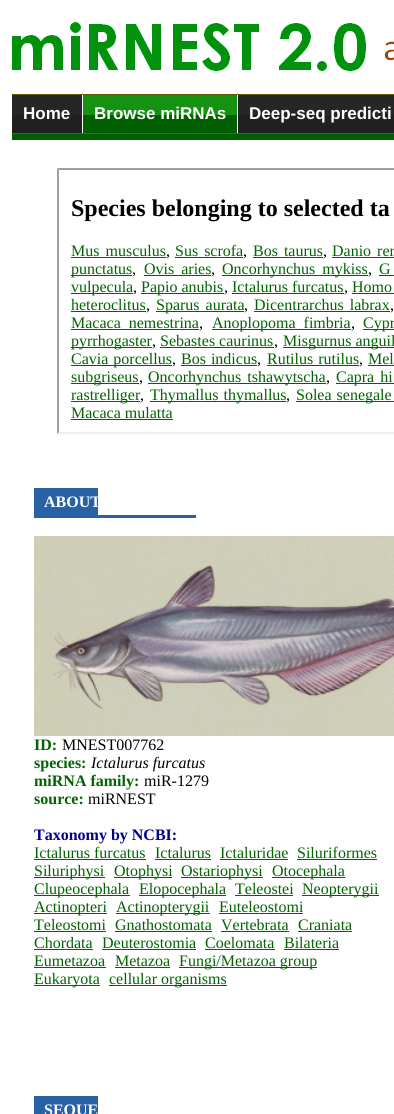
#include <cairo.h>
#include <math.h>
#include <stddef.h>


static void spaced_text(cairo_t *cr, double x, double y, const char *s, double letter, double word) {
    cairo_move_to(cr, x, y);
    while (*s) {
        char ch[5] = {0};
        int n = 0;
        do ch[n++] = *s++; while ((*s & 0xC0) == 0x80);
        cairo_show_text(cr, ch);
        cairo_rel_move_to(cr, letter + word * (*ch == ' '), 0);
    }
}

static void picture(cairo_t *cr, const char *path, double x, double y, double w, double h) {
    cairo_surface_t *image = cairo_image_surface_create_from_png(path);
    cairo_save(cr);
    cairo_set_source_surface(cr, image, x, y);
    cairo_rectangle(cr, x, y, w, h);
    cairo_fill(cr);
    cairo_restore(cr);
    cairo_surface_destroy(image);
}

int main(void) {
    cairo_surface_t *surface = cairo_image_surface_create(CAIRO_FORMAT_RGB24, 394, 1114);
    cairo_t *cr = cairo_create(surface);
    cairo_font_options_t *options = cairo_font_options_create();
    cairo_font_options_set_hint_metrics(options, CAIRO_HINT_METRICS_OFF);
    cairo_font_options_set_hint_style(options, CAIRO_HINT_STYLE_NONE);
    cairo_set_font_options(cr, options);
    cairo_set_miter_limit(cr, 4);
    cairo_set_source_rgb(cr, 1, 1, 1);
    cairo_paint(cr);
    picture(cr, "img1.png", 12, 22, 382, 49);
    picture(cr, "img2.png", 12, 95, 382, 38);
    cairo_set_source_rgb(cr, 0.384, 0.369, 0);
    cairo_rectangle(cr, 12, 94, 382, 1);
    cairo_fill(cr);
    cairo_rectangle(cr, 12, 133, 382, 1);
    cairo_fill(cr);
    cairo_set_source_rgb(cr, 1, 1, 1);
    cairo_rectangle(cr, 82, 95, 1, 38);
    cairo_fill(cr);
    cairo_select_font_face(cr, "Liberation Sans", CAIRO_FONT_SLANT_NORMAL, CAIRO_FONT_WEIGHT_BOLD);
    cairo_set_font_size(cr, 17);
    cairo_move_to(cr, 23, 119);
    cairo_show_text(cr, "Home");
    picture(cr, "img3.png", 83, 95, 154, 38);
    cairo_rectangle(cr, 237, 95, 1, 38);
    cairo_fill(cr);
    cairo_move_to(cr, 94, 119);
    cairo_show_text(cr, "Browse miRNAs");
    cairo_move_to(cr, 249, 119);
    cairo_show_text(cr, "Deep-seq predicti");
    cairo_set_source_rgb(cr, 0, 0.373, 0);
    cairo_rectangle(cr, 12, 134, 382, 6);
    cairo_fill(cr);
    cairo_set_source_rgb(cr, 0.624, 0.624, 0.624);
    cairo_new_path(cr);
    cairo_move_to(cr, 57, 168);
    cairo_line_to(cr, 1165, 168);
    cairo_line_to(cr, 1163, 170);
    cairo_line_to(cr, 59, 170);
    cairo_close_path(cr);
    cairo_fill(cr);
    cairo_set_source_rgb(cr, 0.937, 0.937, 0.937);
    cairo_new_path(cr);
    cairo_move_to(cr, 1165, 434);
    cairo_line_to(cr, 57, 434);
    cairo_line_to(cr, 59, 432);
    cairo_line_to(cr, 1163, 432);
    cairo_close_path(cr);
    cairo_fill(cr);
    cairo_set_source_rgb(cr, 0.624, 0.624, 0.624);
    cairo_new_path(cr);
    cairo_move_to(cr, 57, 434);
    cairo_line_to(cr, 57, 168);
    cairo_line_to(cr, 59, 170);
    cairo_line_to(cr, 59, 432);
    cairo_close_path(cr);
    cairo_fill(cr);
    cairo_select_font_face(cr, "Liberation Serif", CAIRO_FONT_SLANT_NORMAL, CAIRO_FONT_WEIGHT_BOLD);
    cairo_set_font_size(cr, 24);
    cairo_set_source_rgb(cr, 0, 0, 0);
    cairo_move_to(cr, 71, 216);
    cairo_show_text(cr, "Species belonging to selected ta");
    cairo_select_font_face(cr, "Liberation Serif", CAIRO_FONT_SLANT_NORMAL, CAIRO_FONT_WEIGHT_NORMAL);
    cairo_set_font_size(cr, 16);
    cairo_set_source_rgb(cr, 0, 0.392, 0);
    spaced_text(cr, 71, 256, "Mus musculus", 0, 2);
    cairo_rectangle(cr, 71, 257, 95, 1);
    cairo_fill(cr);
    cairo_set_source_rgb(cr, 0, 0, 0);
    cairo_move_to(cr, 166, 256);
    cairo_show_text(cr, ",");
    cairo_set_source_rgb(cr, 0, 0.392, 0);
    spaced_text(cr, 175, 256, "Sus scrofa", 0, 2);
    cairo_rectangle(cr, 175, 257, 68, 1);
    cairo_fill(cr);
    cairo_set_source_rgb(cr, 0, 0, 0);
    cairo_move_to(cr, 243, 256);
    cairo_show_text(cr, ",");
    cairo_set_source_rgb(cr, 0, 0.392, 0);
    spaced_text(cr, 253, 256, "Bos taurus", 0, 2);
    cairo_rectangle(cr, 253, 257, 70, 1);
    cairo_fill(cr);
    cairo_set_source_rgb(cr, 0, 0, 0);
    cairo_move_to(cr, 323, 256);
    cairo_show_text(cr, ",");
    cairo_set_source_rgb(cr, 0, 0.392, 0);
    spaced_text(cr, 332, 256, "Danio rer", 0, 2);
    cairo_rectangle(cr, 332, 257, 62, 1);
    cairo_fill(cr);
    cairo_rectangle(cr, 71, 275, 61, 1);
    cairo_fill(cr);
    cairo_move_to(cr, 71, 274);
    cairo_show_text(cr, "punctatus");
    cairo_set_source_rgb(cr, 0, 0, 0);
    cairo_move_to(cr, 132, 274);
    cairo_show_text(cr, ",");
    cairo_set_source_rgb(cr, 0, 0.392, 0);
    spaced_text(cr, 144, 274, "Ovis aries", 0, 3);
    cairo_rectangle(cr, 144, 275, 67, 1);
    cairo_fill(cr);
    cairo_set_source_rgb(cr, 0, 0, 0);
    cairo_move_to(cr, 211, 274);
    cairo_show_text(cr, ",");
    cairo_set_source_rgb(cr, 0, 0.392, 0);
    cairo_rectangle(cr, 222, 275, 146, 1);
    cairo_fill(cr);
    spaced_text(cr, 222, 274, "Oncorhynchus mykiss", 0, 3);
    cairo_set_source_rgb(cr, 0, 0, 0);
    cairo_move_to(cr, 368, 274);
    cairo_show_text(cr, ",");
    cairo_set_source_rgb(cr, 0, 0.392, 0);
    spaced_text(cr, 379, 274, "G", 0, 3);
    cairo_rectangle(cr, 379, 275, 15, 1);
    cairo_fill(cr);
    cairo_rectangle(cr, 71, 293, 62, 1);
    cairo_fill(cr);
    cairo_move_to(cr, 71, 292);
    cairo_show_text(cr, "vulpecula");
    cairo_set_source_rgb(cr, 0, 0, 0);
    cairo_move_to(cr, 133, 292);
    cairo_show_text(cr, ",");
    cairo_set_source_rgb(cr, 0, 0.392, 0);
    cairo_rectangle(cr, 141, 293, 83, 1);
    cairo_fill(cr);
    cairo_move_to(cr, 141, 292);
    cairo_show_text(cr, "Papio anubis");
    cairo_set_source_rgb(cr, 0, 0, 0);
    cairo_move_to(cr, 224, 292);
    cairo_show_text(cr, ",");
    cairo_set_source_rgb(cr, 0, 0.392, 0);
    cairo_move_to(cr, 232, 292);
    cairo_show_text(cr, "Ictalurus furcatus");
    cairo_rectangle(cr, 232, 293, 112, 1);
    cairo_fill(cr);
    cairo_set_source_rgb(cr, 0, 0, 0);
    cairo_move_to(cr, 344, 292);
    cairo_show_text(cr, ",");
    cairo_set_source_rgb(cr, 0, 0.392, 0);
    cairo_move_to(cr, 352, 292);
    cairo_show_text(cr, "Homo");
    cairo_rectangle(cr, 352, 293, 42, 1);
    cairo_fill(cr);
    cairo_move_to(cr, 71, 310);
    cairo_show_text(cr, "heteroclitus");
    cairo_rectangle(cr, 71, 311, 75, 1);
    cairo_fill(cr);
    cairo_set_source_rgb(cr, 0, 0, 0);
    cairo_move_to(cr, 146, 310);
    cairo_show_text(cr, ",");
    cairo_set_source_rgb(cr, 0, 0.392, 0);
    cairo_rectangle(cr, 156, 311, 88, 1);
    cairo_fill(cr);
    spaced_text(cr, 156, 310, "Sparus aurata", 0, 2);
    cairo_set_source_rgb(cr, 0, 0, 0);
    cairo_move_to(cr, 244, 310);
    cairo_show_text(cr, ",");
    cairo_set_source_rgb(cr, 0, 0.392, 0);
    spaced_text(cr, 254, 310, "Dicentrarchus labrax", 0, 2);
    cairo_rectangle(cr, 254, 311, 136, 1);
    cairo_fill(cr);
    cairo_set_source_rgb(cr, 0, 0, 0);
    cairo_move_to(cr, 390, 310);
    cairo_show_text(cr, ",");
    cairo_set_source_rgb(cr, 0, 0.392, 0);
    spaced_text(cr, 71, 328, "Macaca nemestrina", 0, 4);
    cairo_rectangle(cr, 71, 329, 128, 1);
    cairo_fill(cr);
    cairo_set_source_rgb(cr, 0, 0, 0);
    cairo_move_to(cr, 199, 328);
    cairo_show_text(cr, ",");
    cairo_set_source_rgb(cr, 0, 0.392, 0);
    cairo_rectangle(cr, 212, 329, 139, 1);
    cairo_fill(cr);
    spaced_text(cr, 212, 328, "Anoplopoma fimbria", 0, 4);
    cairo_set_source_rgb(cr, 0, 0, 0);
    cairo_move_to(cr, 351, 328);
    cairo_show_text(cr, ",");
    cairo_set_source_rgb(cr, 0, 0.392, 0);
    cairo_rectangle(cr, 363, 329, 31, 1);
    cairo_fill(cr);
    spaced_text(cr, 363, 328, "Cypr", 0, 4);
    cairo_rectangle(cr, 71, 347, 81, 1);
    cairo_fill(cr);
    cairo_move_to(cr, 71, 346);
    cairo_show_text(cr, "pyrrhogaster");
    cairo_set_source_rgb(cr, 0, 0, 0);
    cairo_move_to(cr, 152, 346);
    cairo_show_text(cr, ",");
    cairo_set_source_rgb(cr, 0, 0.392, 0);
    cairo_move_to(cr, 160, 346);
    cairo_show_text(cr, "Sebastes caurinus");
    cairo_rectangle(cr, 160, 347, 114, 1);
    cairo_fill(cr);
    cairo_set_source_rgb(cr, 0, 0, 0);
    cairo_move_to(cr, 274, 346);
    cairo_show_text(cr, ",");
    cairo_set_source_rgb(cr, 0, 0.392, 0);
    cairo_rectangle(cr, 283, 347, 111, 1);
    cairo_fill(cr);
    cairo_move_to(cr, 283, 346);
    cairo_show_text(cr, "Misgurnus anguil");
    cairo_rectangle(cr, 71, 365, 101, 1);
    cairo_fill(cr);
    spaced_text(cr, 71, 364, "Cavia porcellus", 0, 1);
    cairo_set_source_rgb(cr, 0, 0, 0);
    cairo_move_to(cr, 172, 364);
    cairo_show_text(cr, ",");
    cairo_set_source_rgb(cr, 0, 0.392, 0);
    spaced_text(cr, 181, 364, "Bos indicus", 0, 1);
    cairo_rectangle(cr, 181, 365, 76, 1);
    cairo_fill(cr);
    cairo_set_source_rgb(cr, 0, 0, 0);
    cairo_move_to(cr, 257, 364);
    cairo_show_text(cr, ",");
    cairo_set_source_rgb(cr, 0, 0.392, 0);
    spaced_text(cr, 267, 364, "Rutilus rutilus", 0, 1);
    cairo_rectangle(cr, 267, 365, 92, 1);
    cairo_fill(cr);
    cairo_set_source_rgb(cr, 0, 0, 0);
    cairo_move_to(cr, 359, 364);
    cairo_show_text(cr, ",");
    cairo_set_source_rgb(cr, 0, 0.392, 0);
    spaced_text(cr, 368, 364, "Mel", 0, 1);
    cairo_rectangle(cr, 368, 365, 26, 1);
    cairo_fill(cr);
    cairo_rectangle(cr, 71, 383, 68, 1);
    cairo_fill(cr);
    cairo_move_to(cr, 71, 382);
    cairo_show_text(cr, "subgriseus");
    cairo_set_source_rgb(cr, 0, 0, 0);
    cairo_move_to(cr, 139, 382);
    cairo_show_text(cr, ",");
    cairo_set_source_rgb(cr, 0, 0.392, 0);
    cairo_rectangle(cr, 148, 383, 178, 1);
    cairo_fill(cr);
    spaced_text(cr, 148, 382, "Oncorhynchus tshawytscha", 0, 2);
    cairo_set_source_rgb(cr, 0, 0, 0);
    cairo_move_to(cr, 326, 382);
    cairo_show_text(cr, ",");
    cairo_set_source_rgb(cr, 0, 0.392, 0);
    cairo_rectangle(cr, 336, 383, 58, 1);
    cairo_fill(cr);
    spaced_text(cr, 336, 382, "Capra hi", 0, 2);
    cairo_rectangle(cr, 71, 401, 69, 1);
    cairo_fill(cr);
    cairo_move_to(cr, 71, 400);
    cairo_show_text(cr, "rastrelliger");
    cairo_set_source_rgb(cr, 0, 0, 0);
    cairo_move_to(cr, 140, 400);
    cairo_show_text(cr, ",");
    cairo_set_source_rgb(cr, 0, 0.392, 0);
    cairo_rectangle(cr, 150, 401, 136, 1);
    cairo_fill(cr);
    spaced_text(cr, 150, 400, "Thymallus thymallus", 0, 1);
    cairo_set_source_rgb(cr, 0, 0, 0);
    cairo_move_to(cr, 286, 400);
    cairo_show_text(cr, ",");
    cairo_set_source_rgb(cr, 0, 0.392, 0);
    cairo_rectangle(cr, 296, 401, 98, 1);
    cairo_fill(cr);
    spaced_text(cr, 296, 400, "Solea senegale", 0, 1);
    cairo_move_to(cr, 71, 418);
    cairo_show_text(cr, "Macaca mulatta");
    cairo_rectangle(cr, 71, 419, 102, 1);
    cairo_fill(cr);
    cairo_set_source_rgb(cr, 0.157, 0.38, 0.643);
    cairo_rectangle(cr, 34, 488, 64, 30);
    cairo_fill(cr);
    cairo_select_font_face(cr, "Liberation Serif", CAIRO_FONT_SLANT_NORMAL, CAIRO_FONT_WEIGHT_BOLD);
    cairo_set_source_rgb(cr, 1, 1, 1);
    cairo_move_to(cr, 44, 507);
    cairo_show_text(cr, "ABOUT");
    cairo_set_source_rgb(cr, 0.157, 0.38, 0.643);
    cairo_rectangle(cr, 98, 515, 98, 3);
    cairo_fill(cr);
    picture(cr, "img4.png", 34, 536, 360, 200);
    cairo_set_source_rgb(cr, 0, 0.392, 0);
    cairo_move_to(cr, 34, 750);
    cairo_show_text(cr, "ID:");
    cairo_select_font_face(cr, "Liberation Serif", CAIRO_FONT_SLANT_NORMAL, CAIRO_FONT_WEIGHT_NORMAL);
    cairo_set_source_rgb(cr, 0, 0, 0);
    cairo_move_to(cr, 62, 750);
    cairo_show_text(cr, "MNEST007762");
    cairo_select_font_face(cr, "Liberation Serif", CAIRO_FONT_SLANT_NORMAL, CAIRO_FONT_WEIGHT_BOLD);
    cairo_set_source_rgb(cr, 0, 0.392, 0);
    cairo_move_to(cr, 34, 768);
    cairo_show_text(cr, "species:");
    cairo_select_font_face(cr, "Liberation Serif", CAIRO_FONT_SLANT_ITALIC, CAIRO_FONT_WEIGHT_NORMAL);
    cairo_set_source_rgb(cr, 0, 0, 0);
    cairo_move_to(cr, 91, 768);
    cairo_show_text(cr, "Ictalurus furcatus");
    cairo_select_font_face(cr, "Liberation Serif", CAIRO_FONT_SLANT_NORMAL, CAIRO_FONT_WEIGHT_BOLD);
    cairo_set_source_rgb(cr, 0, 0.392, 0);
    cairo_move_to(cr, 34, 786);
    cairo_show_text(cr, "miRNA family:");
    cairo_select_font_face(cr, "Liberation Serif", CAIRO_FONT_SLANT_NORMAL, CAIRO_FONT_WEIGHT_NORMAL);
    cairo_set_source_rgb(cr, 0, 0, 0);
    cairo_move_to(cr, 144, 786);
    cairo_show_text(cr, "miR-1279");
    cairo_select_font_face(cr, "Liberation Serif", CAIRO_FONT_SLANT_NORMAL, CAIRO_FONT_WEIGHT_BOLD);
    cairo_set_source_rgb(cr, 0, 0.392, 0);
    cairo_move_to(cr, 34, 804);
    cairo_show_text(cr, "source:");
    cairo_select_font_face(cr, "Liberation Serif", CAIRO_FONT_SLANT_NORMAL, CAIRO_FONT_WEIGHT_NORMAL);
    cairo_set_source_rgb(cr, 0, 0, 0);
    cairo_move_to(cr, 88, 804);
    cairo_show_text(cr, "miRNEST");
    cairo_select_font_face(cr, "Liberation Serif", CAIRO_FONT_SLANT_NORMAL, CAIRO_FONT_WEIGHT_BOLD);
    cairo_set_source_rgb(cr, 0, 0, 0.545);
    cairo_move_to(cr, 34, 840);
    cairo_show_text(cr, "Taxonomy by NCBI:");
    cairo_select_font_face(cr, "Liberation Serif", CAIRO_FONT_SLANT_NORMAL, CAIRO_FONT_WEIGHT_NORMAL);
    cairo_set_source_rgb(cr, 0, 0.392, 0);
    cairo_move_to(cr, 34, 858);
    cairo_show_text(cr, "Ictalurus furcatus");
    cairo_rectangle(cr, 34, 859, 112, 1);
    cairo_fill(cr);
    cairo_move_to(cr, 155, 858);
    cairo_show_text(cr, "Ictalurus");
    cairo_rectangle(cr, 155, 859, 56, 1);
    cairo_fill(cr);
    cairo_move_to(cr, 220, 858);
    cairo_show_text(cr, "Ictaluridae");
    cairo_rectangle(cr, 220, 859, 68, 1);
    cairo_fill(cr);
    cairo_move_to(cr, 297, 858);
    cairo_show_text(cr, "Siluriformes");
    cairo_rectangle(cr, 297, 859, 80, 1);
    cairo_fill(cr);
    cairo_rectangle(cr, 34, 877, 71, 1);
    cairo_fill(cr);
    cairo_move_to(cr, 34, 876);
    cairo_show_text(cr, "Siluriphysi");
    cairo_rectangle(cr, 114, 877, 58, 1);
    cairo_fill(cr);
    cairo_move_to(cr, 114, 876);
    cairo_show_text(cr, "Otophysi");
    cairo_rectangle(cr, 181, 877, 82, 1);
    cairo_fill(cr);
    cairo_move_to(cr, 181, 876);
    cairo_show_text(cr, "Ostariophysi");
    cairo_rectangle(cr, 272, 877, 73, 1);
    cairo_fill(cr);
    cairo_move_to(cr, 272, 876);
    cairo_show_text(cr, "Otocephala");
    cairo_rectangle(cr, 34, 895, 96, 1);
    cairo_fill(cr);
    cairo_move_to(cr, 34, 894);
    cairo_show_text(cr, "Clupeocephala");
    cairo_rectangle(cr, 139, 895, 87, 1);
    cairo_fill(cr);
    cairo_move_to(cr, 139, 894);
    cairo_show_text(cr, "Elopocephala");
    cairo_move_to(cr, 235, 894);
    cairo_show_text(cr, "Teleostei");
    cairo_rectangle(cr, 235, 895, 58, 1);
    cairo_fill(cr);
    cairo_rectangle(cr, 302, 895, 77, 1);
    cairo_fill(cr);
    cairo_move_to(cr, 302, 894);
    cairo_show_text(cr, "Neopterygii");
    cairo_rectangle(cr, 34, 913, 73, 1);
    cairo_fill(cr);
    cairo_move_to(cr, 34, 912);
    cairo_show_text(cr, "Actinopteri");
    cairo_rectangle(cr, 116, 913, 94, 1);
    cairo_fill(cr);
    cairo_move_to(cr, 116, 912);
    cairo_show_text(cr, "Actinopterygii");
    cairo_move_to(cr, 219, 912);
    cairo_show_text(cr, "Euteleostomi");
    cairo_rectangle(cr, 219, 913, 84, 1);
    cairo_fill(cr);
    cairo_move_to(cr, 34, 930);
    cairo_show_text(cr, "Teleostomi");
    cairo_rectangle(cr, 34, 931, 72, 1);
    cairo_fill(cr);
    cairo_move_to(cr, 115, 930);
    cairo_show_text(cr, "Gnathostomata");
    cairo_rectangle(cr, 115, 931, 97, 1);
    cairo_fill(cr);
    cairo_move_to(cr, 221, 930);
    cairo_show_text(cr, "Vertebrata");
    cairo_rectangle(cr, 221, 931, 68, 1);
    cairo_fill(cr);
    cairo_move_to(cr, 298, 930);
    cairo_show_text(cr, "Craniata");
    cairo_rectangle(cr, 298, 931, 54, 1);
    cairo_fill(cr);
    cairo_move_to(cr, 34, 948);
    cairo_show_text(cr, "Chordata");
    cairo_rectangle(cr, 34, 949, 59, 1);
    cairo_fill(cr);
    cairo_move_to(cr, 102, 948);
    cairo_show_text(cr, "Deuterostomia");
    cairo_rectangle(cr, 102, 949, 94, 1);
    cairo_fill(cr);
    cairo_move_to(cr, 205, 948);
    cairo_show_text(cr, "Coelomata");
    cairo_rectangle(cr, 205, 949, 70, 1);
    cairo_fill(cr);
    cairo_move_to(cr, 284, 948);
    cairo_show_text(cr, "Bilateria");
    cairo_rectangle(cr, 284, 949, 55, 1);
    cairo_fill(cr);
    cairo_move_to(cr, 34, 966);
    cairo_show_text(cr, "Eumetazoa");
    cairo_rectangle(cr, 34, 967, 72, 1);
    cairo_fill(cr);
    cairo_move_to(cr, 115, 966);
    cairo_show_text(cr, "Metazoa");
    cairo_rectangle(cr, 115, 967, 55, 1);
    cairo_fill(cr);
    cairo_rectangle(cr, 179, 967, 138, 1);
    cairo_fill(cr);
    cairo_move_to(cr, 179, 966);
    cairo_show_text(cr, "Fungi/Metazoa group");
    cairo_rectangle(cr, 34, 985, 66, 1);
    cairo_fill(cr);
    cairo_move_to(cr, 34, 984);
    cairo_show_text(cr, "Eukaryota");
    cairo_rectangle(cr, 109, 985, 118, 1);
    cairo_fill(cr);
    cairo_move_to(cr, 109, 984);
    cairo_show_text(cr, "cellular organisms");
    cairo_set_source_rgb(cr, 0.157, 0.38, 0.643);
    cairo_rectangle(cr, 34, 1096, 64, 18);
    cairo_fill(cr);
    cairo_select_font_face(cr, "Liberation Serif", CAIRO_FONT_SLANT_NORMAL, CAIRO_FONT_WEIGHT_BOLD);
    cairo_set_source_rgb(cr, 1, 1, 1);
    cairo_move_to(cr, 44, 1115);
    cairo_show_text(cr, "SEQUE");
    cairo_surface_write_to_png(surface, "page.png");
    cairo_font_options_destroy(options);
    cairo_destroy(cr);
    cairo_surface_destroy(surface);
    return 0;
}
